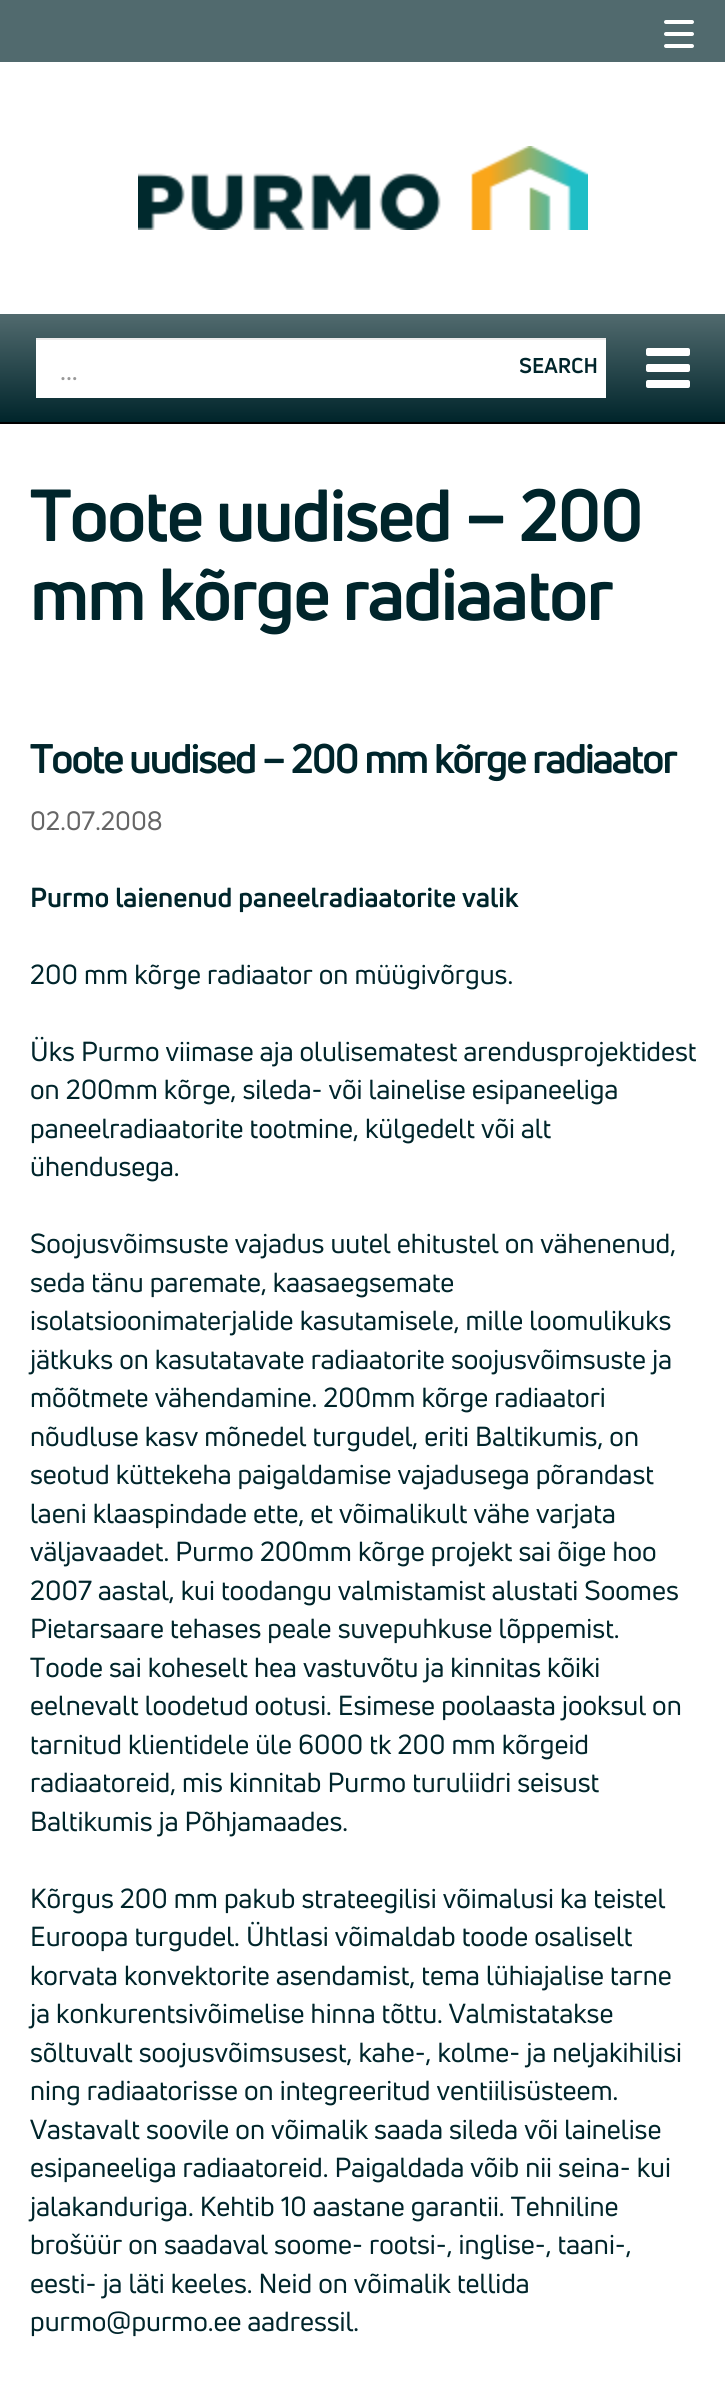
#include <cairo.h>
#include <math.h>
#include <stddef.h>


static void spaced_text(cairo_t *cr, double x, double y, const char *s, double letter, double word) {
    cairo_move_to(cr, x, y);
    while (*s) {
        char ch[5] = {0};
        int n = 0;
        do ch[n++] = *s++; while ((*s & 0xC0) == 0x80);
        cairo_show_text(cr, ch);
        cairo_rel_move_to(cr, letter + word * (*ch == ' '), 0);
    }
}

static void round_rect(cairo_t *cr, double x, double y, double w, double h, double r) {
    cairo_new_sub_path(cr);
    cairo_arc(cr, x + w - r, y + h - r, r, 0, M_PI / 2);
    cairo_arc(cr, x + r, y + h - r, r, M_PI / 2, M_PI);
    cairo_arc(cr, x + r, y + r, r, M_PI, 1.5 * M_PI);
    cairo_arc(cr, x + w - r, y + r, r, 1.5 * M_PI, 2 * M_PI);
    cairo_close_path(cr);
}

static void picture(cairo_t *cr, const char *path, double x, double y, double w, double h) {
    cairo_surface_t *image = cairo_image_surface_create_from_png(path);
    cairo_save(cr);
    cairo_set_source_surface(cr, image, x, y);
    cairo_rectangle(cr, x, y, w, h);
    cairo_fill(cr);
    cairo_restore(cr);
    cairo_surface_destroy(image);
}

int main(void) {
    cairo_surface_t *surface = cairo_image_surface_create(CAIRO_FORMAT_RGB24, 725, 2393);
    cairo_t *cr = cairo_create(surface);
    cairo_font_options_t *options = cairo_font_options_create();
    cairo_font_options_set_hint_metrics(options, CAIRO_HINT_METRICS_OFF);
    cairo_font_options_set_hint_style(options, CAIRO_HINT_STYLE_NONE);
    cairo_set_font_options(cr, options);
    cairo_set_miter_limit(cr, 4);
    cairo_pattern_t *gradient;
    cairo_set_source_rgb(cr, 1, 1, 1);
    cairo_paint(cr);
    cairo_set_source_rgb(cr, 0.318, 0.416, 0.431);
    cairo_rectangle(cr, 0, 0, 725, 62);
    cairo_fill(cr);
    cairo_set_source_rgb(cr, 1, 1, 1);
    round_rect(cr, 664, 20, 30, 4, 2);
    cairo_fill(cr);
    round_rect(cr, 664, 32, 30, 4, 2);
    cairo_fill(cr);
    round_rect(cr, 664, 44, 30, 4, 2);
    cairo_fill(cr);
    picture(cr, "img1.png", 138, 146, 450, 84);
    gradient = cairo_pattern_create_linear(363, 314, 363, 422);
    cairo_pattern_add_color_stop_rgba(gradient, 0, 0.318, 0.416, 0.431, 1);
    cairo_pattern_add_color_stop_rgba(gradient, 1, 0, 0.145, 0.169, 1);
    cairo_set_source(cr, gradient);
    cairo_pattern_destroy(gradient);
    cairo_rectangle(cr, 0, 314, 725, 108);
    cairo_fill(cr);
    cairo_set_source_rgb(cr, 0, 0, 0);
    cairo_rectangle(cr, 0, 422, 725, 2);
    cairo_fill(cr);
    cairo_set_source_rgb(cr, 1, 1, 1);
    cairo_rectangle(cr, 36, 340, 570, 58);
    cairo_fill(cr);
    cairo_select_font_face(cr, "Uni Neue", CAIRO_FONT_SLANT_NORMAL, CAIRO_FONT_WEIGHT_BOLD);
    cairo_set_font_size(cr, 21);
    cairo_set_source_rgb(cr, 0, 0.145, 0.169);
    cairo_move_to(cr, 519, 373);
    cairo_show_text(cr, "SEARCH");
    cairo_set_source_rgb(cr, 0.925, 0.925, 0.925);
    cairo_rectangle(cr, 36, 338, 570, 2);
    cairo_fill(cr);
    cairo_select_font_face(cr, "Uni Neue", CAIRO_FONT_SLANT_NORMAL, CAIRO_FONT_WEIGHT_NORMAL);
    cairo_set_font_size(cr, 28);
    cairo_set_source_rgb(cr, 0.6, 0.6, 0.6);
    cairo_move_to(cr, 60, 380);
    cairo_show_text(cr, "...");
    cairo_set_source_rgb(cr, 1, 1, 1);
    round_rect(cr, 646, 348, 44, 8, 2);
    cairo_fill(cr);
    round_rect(cr, 646, 364, 44, 8, 2);
    cairo_fill(cr);
    round_rect(cr, 646, 380, 44, 8, 2);
    cairo_fill(cr);
    cairo_select_font_face(cr, "Uni Neue", CAIRO_FONT_SLANT_NORMAL, CAIRO_FONT_WEIGHT_BOLD);
    cairo_set_font_size(cr, 72);
    cairo_set_source_rgb(cr, 0, 0.145, 0.169);
    spaced_text(cr, 30, 541, "Toote uudised – 200", -2, 0);
    spaced_text(cr, 30, 620, "mm kõrge radiaator", -2, 0);
    cairo_set_font_size(cr, 40.5);
    spaced_text(cr, 30, 773, "Toote uudised – 200 mm kõrge radiaator", -2, 0);
    cairo_select_font_face(cr, "Uni Neue", CAIRO_FONT_SLANT_NORMAL, CAIRO_FONT_WEIGHT_NORMAL);
    cairo_set_font_size(cr, 26);
    cairo_set_source_rgb(cr, 0.4, 0.4, 0.4);
    cairo_move_to(cr, 30, 830);
    cairo_show_text(cr, "02.07.2008");
    cairo_select_font_face(cr, "Uni Neue", CAIRO_FONT_SLANT_NORMAL, CAIRO_FONT_WEIGHT_BOLD);
    cairo_set_font_size(cr, 27);
    cairo_set_source_rgb(cr, 0, 0.145, 0.169);
    cairo_move_to(cr, 30, 907);
    cairo_show_text(cr, "Purmo laienenud paneelradiaatorite valik");
    cairo_select_font_face(cr, "Uni Neue", CAIRO_FONT_SLANT_NORMAL, CAIRO_FONT_WEIGHT_NORMAL);
    cairo_move_to(cr, 30, 984);
    cairo_show_text(cr, "200 mm kõrge radiaator on müügivõrgus.");
    cairo_move_to(cr, 30, 1061);
    cairo_show_text(cr, "Üks Purmo viimase aja olulisematest arendusprojektidest");
    cairo_move_to(cr, 30, 1099);
    cairo_show_text(cr, "on 200mm kõrge, sileda- või lainelise esipaneeliga");
    cairo_move_to(cr, 30, 1138);
    cairo_show_text(cr, "paneelradiaatorite tootmine, külgedelt või alt");
    cairo_move_to(cr, 30, 1176);
    cairo_show_text(cr, "ühendusega.");
    cairo_move_to(cr, 30, 1253);
    cairo_show_text(cr, "Soojusvõimsuste vajadus uutel ehitustel on vähenenud,");
    cairo_move_to(cr, 30, 1292);
    cairo_show_text(cr, "seda tänu paremate, kaasaegsemate");
    cairo_move_to(cr, 30, 1330);
    cairo_show_text(cr, "isolatsioonimaterjalide kasutamisele, mille loomulikuks");
    cairo_move_to(cr, 30, 1369);
    cairo_show_text(cr, "jätkuks on kasutatavate radiaatorite soojusvõimsuste ja");
    cairo_move_to(cr, 30, 1407);
    cairo_show_text(cr, "mõõtmete vähendamine. 200mm kõrge radiaatori");
    cairo_move_to(cr, 30, 1446);
    cairo_show_text(cr, "nõudluse kasv mõnedel turgudel, eriti Baltikumis, on");
    cairo_move_to(cr, 30, 1484);
    cairo_show_text(cr, "seotud küttekeha paigaldamise vajadusega põrandast");
    cairo_move_to(cr, 30, 1523);
    cairo_show_text(cr, "laeni klaaspindade ette, et võimalikult vähe varjata");
    cairo_move_to(cr, 30, 1561);
    cairo_show_text(cr, "väljavaadet. Purmo 200mm kõrge projekt sai õige hoo");
    cairo_move_to(cr, 30, 1600);
    cairo_show_text(cr, "2007 aastal, kui toodangu valmistamist alustati Soomes");
    cairo_move_to(cr, 30, 1638);
    cairo_show_text(cr, "Pietarsaare tehases peale suvepuhkuse lõppemist.");
    cairo_move_to(cr, 30, 1677);
    cairo_show_text(cr, "Toode sai koheselt hea vastuvõtu ja kinnitas kõiki");
    cairo_move_to(cr, 30, 1715);
    cairo_show_text(cr, "eelnevalt loodetud ootusi. Esimese poolaasta jooksul on");
    cairo_move_to(cr, 30, 1754);
    cairo_show_text(cr, "tarnitud klientidele üle 6000 tk 200 mm kõrgeid");
    cairo_move_to(cr, 30, 1792);
    cairo_show_text(cr, "radiaatoreid, mis kinnitab Purmo turuliidri seisust");
    cairo_move_to(cr, 30, 1831);
    cairo_show_text(cr, "Baltikumis ja Põhjamaades.");
    cairo_move_to(cr, 30, 1908);
    cairo_show_text(cr, "Kõrgus 200 mm pakub strateegilisi võimalusi ka teistel");
    cairo_move_to(cr, 30, 1946);
    cairo_show_text(cr, "Euroopa turgudel. Ühtlasi võimaldab toode osaliselt");
    cairo_move_to(cr, 30, 1985);
    cairo_show_text(cr, "korvata konvektorite asendamist, tema lühiajalise tarne");
    cairo_move_to(cr, 30, 2023);
    cairo_show_text(cr, "ja konkurentsivõimelise hinna tõttu. Valmistatakse");
    cairo_move_to(cr, 30, 2062);
    cairo_show_text(cr, "sõltuvalt soojusvõimsusest, kahe-, kolme- ja neljakihilisi");
    cairo_move_to(cr, 30, 2100);
    cairo_show_text(cr, "ning radiaatorisse on integreeritud ventiilisüsteem.");
    cairo_move_to(cr, 30, 2139);
    cairo_show_text(cr, "Vastavalt soovile on võimalik saada sileda või lainelise");
    cairo_move_to(cr, 30, 2177);
    cairo_show_text(cr, "esipaneeliga radiaatoreid. Paigaldada võib nii seina- kui");
    cairo_move_to(cr, 30, 2216);
    cairo_show_text(cr, "jalakanduriga. Kehtib 10 aastane garantii. Tehniline");
    cairo_move_to(cr, 30, 2254);
    cairo_show_text(cr, "brošüür on saadaval soome- rootsi-, inglise-, taani-,");
    cairo_move_to(cr, 30, 2293);
    cairo_show_text(cr, "eesti- ja läti keeles. Neid on võimalik tellida");
    cairo_move_to(cr, 30, 2331);
    cairo_show_text(cr, "purmo@purmo.ee aadressil.");
    cairo_surface_write_to_png(surface, "page.png");
    cairo_font_options_destroy(options);
    cairo_destroy(cr);
    cairo_surface_destroy(surface);
    return 0;
}
